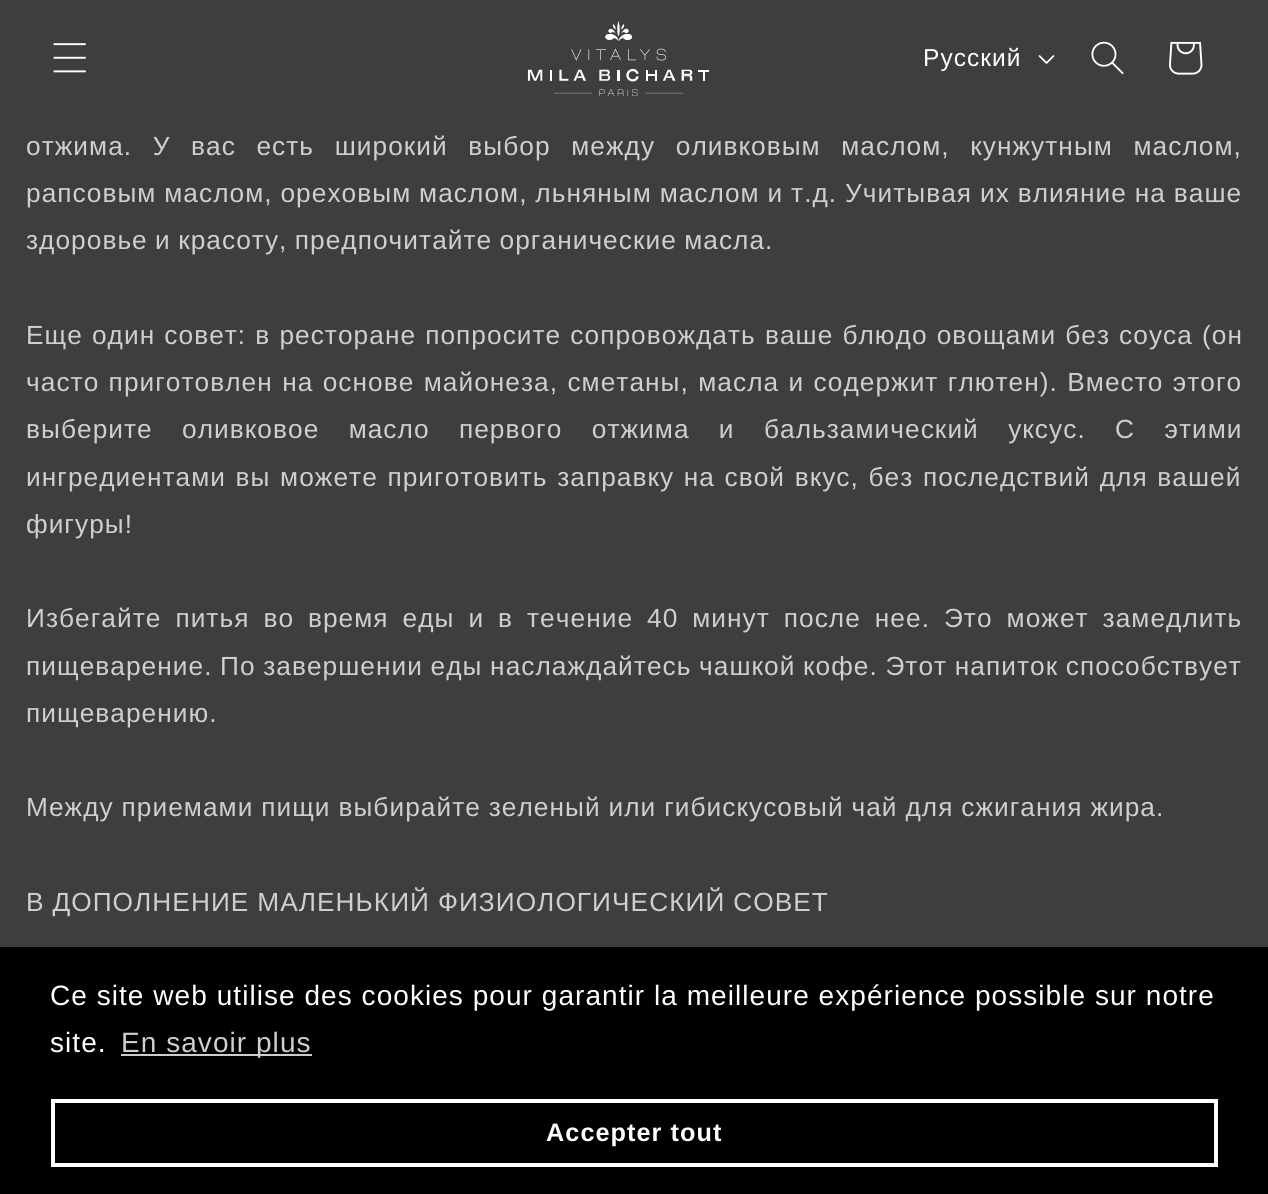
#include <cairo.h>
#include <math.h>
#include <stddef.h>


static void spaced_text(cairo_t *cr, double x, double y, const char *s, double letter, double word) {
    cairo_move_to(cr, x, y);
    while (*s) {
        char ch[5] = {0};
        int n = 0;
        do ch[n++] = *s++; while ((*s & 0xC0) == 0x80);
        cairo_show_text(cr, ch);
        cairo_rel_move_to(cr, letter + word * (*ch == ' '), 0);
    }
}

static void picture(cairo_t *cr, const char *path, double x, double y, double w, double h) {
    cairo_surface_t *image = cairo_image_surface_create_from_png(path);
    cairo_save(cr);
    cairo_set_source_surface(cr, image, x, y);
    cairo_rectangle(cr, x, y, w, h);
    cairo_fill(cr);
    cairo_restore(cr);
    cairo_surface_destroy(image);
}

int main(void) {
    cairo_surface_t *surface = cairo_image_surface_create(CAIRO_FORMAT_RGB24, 1268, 1194);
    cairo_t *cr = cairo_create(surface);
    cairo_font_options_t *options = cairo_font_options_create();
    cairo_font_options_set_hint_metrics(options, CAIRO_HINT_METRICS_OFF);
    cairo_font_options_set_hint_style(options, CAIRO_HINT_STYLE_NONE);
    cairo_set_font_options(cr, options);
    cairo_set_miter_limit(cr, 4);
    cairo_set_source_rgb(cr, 0.243, 0.243, 0.243);
    cairo_paint(cr);
    picture(cr, "img1.png", 53, 43, 33, 30);
    picture(cr, "img2.png", 527, 21, 182, 75);
    cairo_select_font_face(cr, "Liberation Sans", CAIRO_FONT_SLANT_NORMAL, CAIRO_FONT_WEIGHT_NORMAL);
    cairo_set_font_size(cr, 24.5);
    cairo_set_source_rgb(cr, 1, 1, 1);
    spaced_text(cr, 923, 66, "Русский", 1.05, 0);
    picture(cr, "img3.png", 1038, 55, 17, 9);
    picture(cr, "img4.png", 1091, 41, 33, 34);
    picture(cr, "img5.png", 1169, 41, 34, 34);
    cairo_set_font_size(cr, 26.25);
    cairo_set_source_rgb(cr, 0.812, 0.812, 0.812);
    spaced_text(cr, 26, 155, "отжима. У вас есть широкий выбор между оливковым маслом, кунжутным маслом,", 1.05, 12.25);
    spaced_text(cr, 26, 202, "рапсовым маслом, ореховым маслом, льняным маслом и т.д. Учитывая их влияние на ваше", 1.05, -0.5);
    spaced_text(cr, 26, 249, "здоровье и красоту, предпочитайте органические масла.", 1.05, -1);
    spaced_text(cr, 26, 344, "Еще один совет: в ресторане попросите сопровождать ваше блюдо овощами без соуса (он", 1.05, 0.75);
    spaced_text(cr, 26, 391, "часто приготовлен на основе майонеза, сметаны, масла и содержит глютен). Вместо этого", 1.05, 1);
    spaced_text(cr, 26, 438, "выберите оливковое масло первого отжима и бальзамический уксус. С этими", 1.05, 21);
    spaced_text(cr, 26, 486, "ингредиентами вы можете приготовить заправку на свой вкус, без последствий для вашей", 1.05, 1.25);
    spaced_text(cr, 26, 533, "фигуры!", 1.05, 0);
    spaced_text(cr, 26, 627, "Избегайте питья во время еды и в течение 40 минут после нее. Это может замедлить", 1.05, 5.6);
    spaced_text(cr, 26, 675, "пищеварение. По завершении еды наслаждайтесь чашкой кофе. Этот напиток способствует", 1.05, -0.75);
    spaced_text(cr, 26, 722, "пищеварению.", 1.05, 0);
    spaced_text(cr, 26, 816, "Между приемами пищи выбирайте зеленый или гибискусовый чай для сжигания жира.", 1.05, -0.5);
    spaced_text(cr, 26, 911, "В ДОПОЛНЕНИЕ МАЛЕНЬКИЙ ФИЗИОЛОГИЧЕСКИЙ СОВЕТ", 1.05, -0.5);
    cairo_set_source_rgb(cr, 0, 0, 0);
    cairo_rectangle(cr, 0, 947, 1268, 247);
    cairo_fill(cr);
    cairo_set_font_size(cr, 28);
    cairo_set_source_rgb(cr, 1, 1, 1);
    spaced_text(cr, 50, 1005, "Ce site web utilise des cookies pour garantir la meilleure expérience possible sur notre", 1.05, 0);
    spaced_text(cr, 50, 1052, "site.", 1.05, 0);
    cairo_set_source_rgb(cr, 0.8, 0.8, 0.8);
    cairo_rectangle(cr, 121, 1054, 191, 2);
    cairo_fill(cr);
    cairo_set_source_rgb(cr, 0.812, 0.812, 0.812);
    spaced_text(cr, 121, 1052, "En savoir plus", 1.05, 0);
    cairo_rectangle(cr, 53, 1101, 1163, 64);
    cairo_set_source_rgb(cr, 1, 1, 1);
    cairo_set_line_width(cr, 4);
    cairo_stroke(cr);
    cairo_select_font_face(cr, "Liberation Sans", CAIRO_FONT_SLANT_NORMAL, CAIRO_FONT_WEIGHT_BOLD);
    cairo_set_font_size(cr, 25.25);
    spaced_text(cr, 546, 1141, "Accepter tout", 1.05, 0);
    cairo_surface_write_to_png(surface, "page.png");
    cairo_font_options_destroy(options);
    cairo_destroy(cr);
    cairo_surface_destroy(surface);
    return 0;
}
